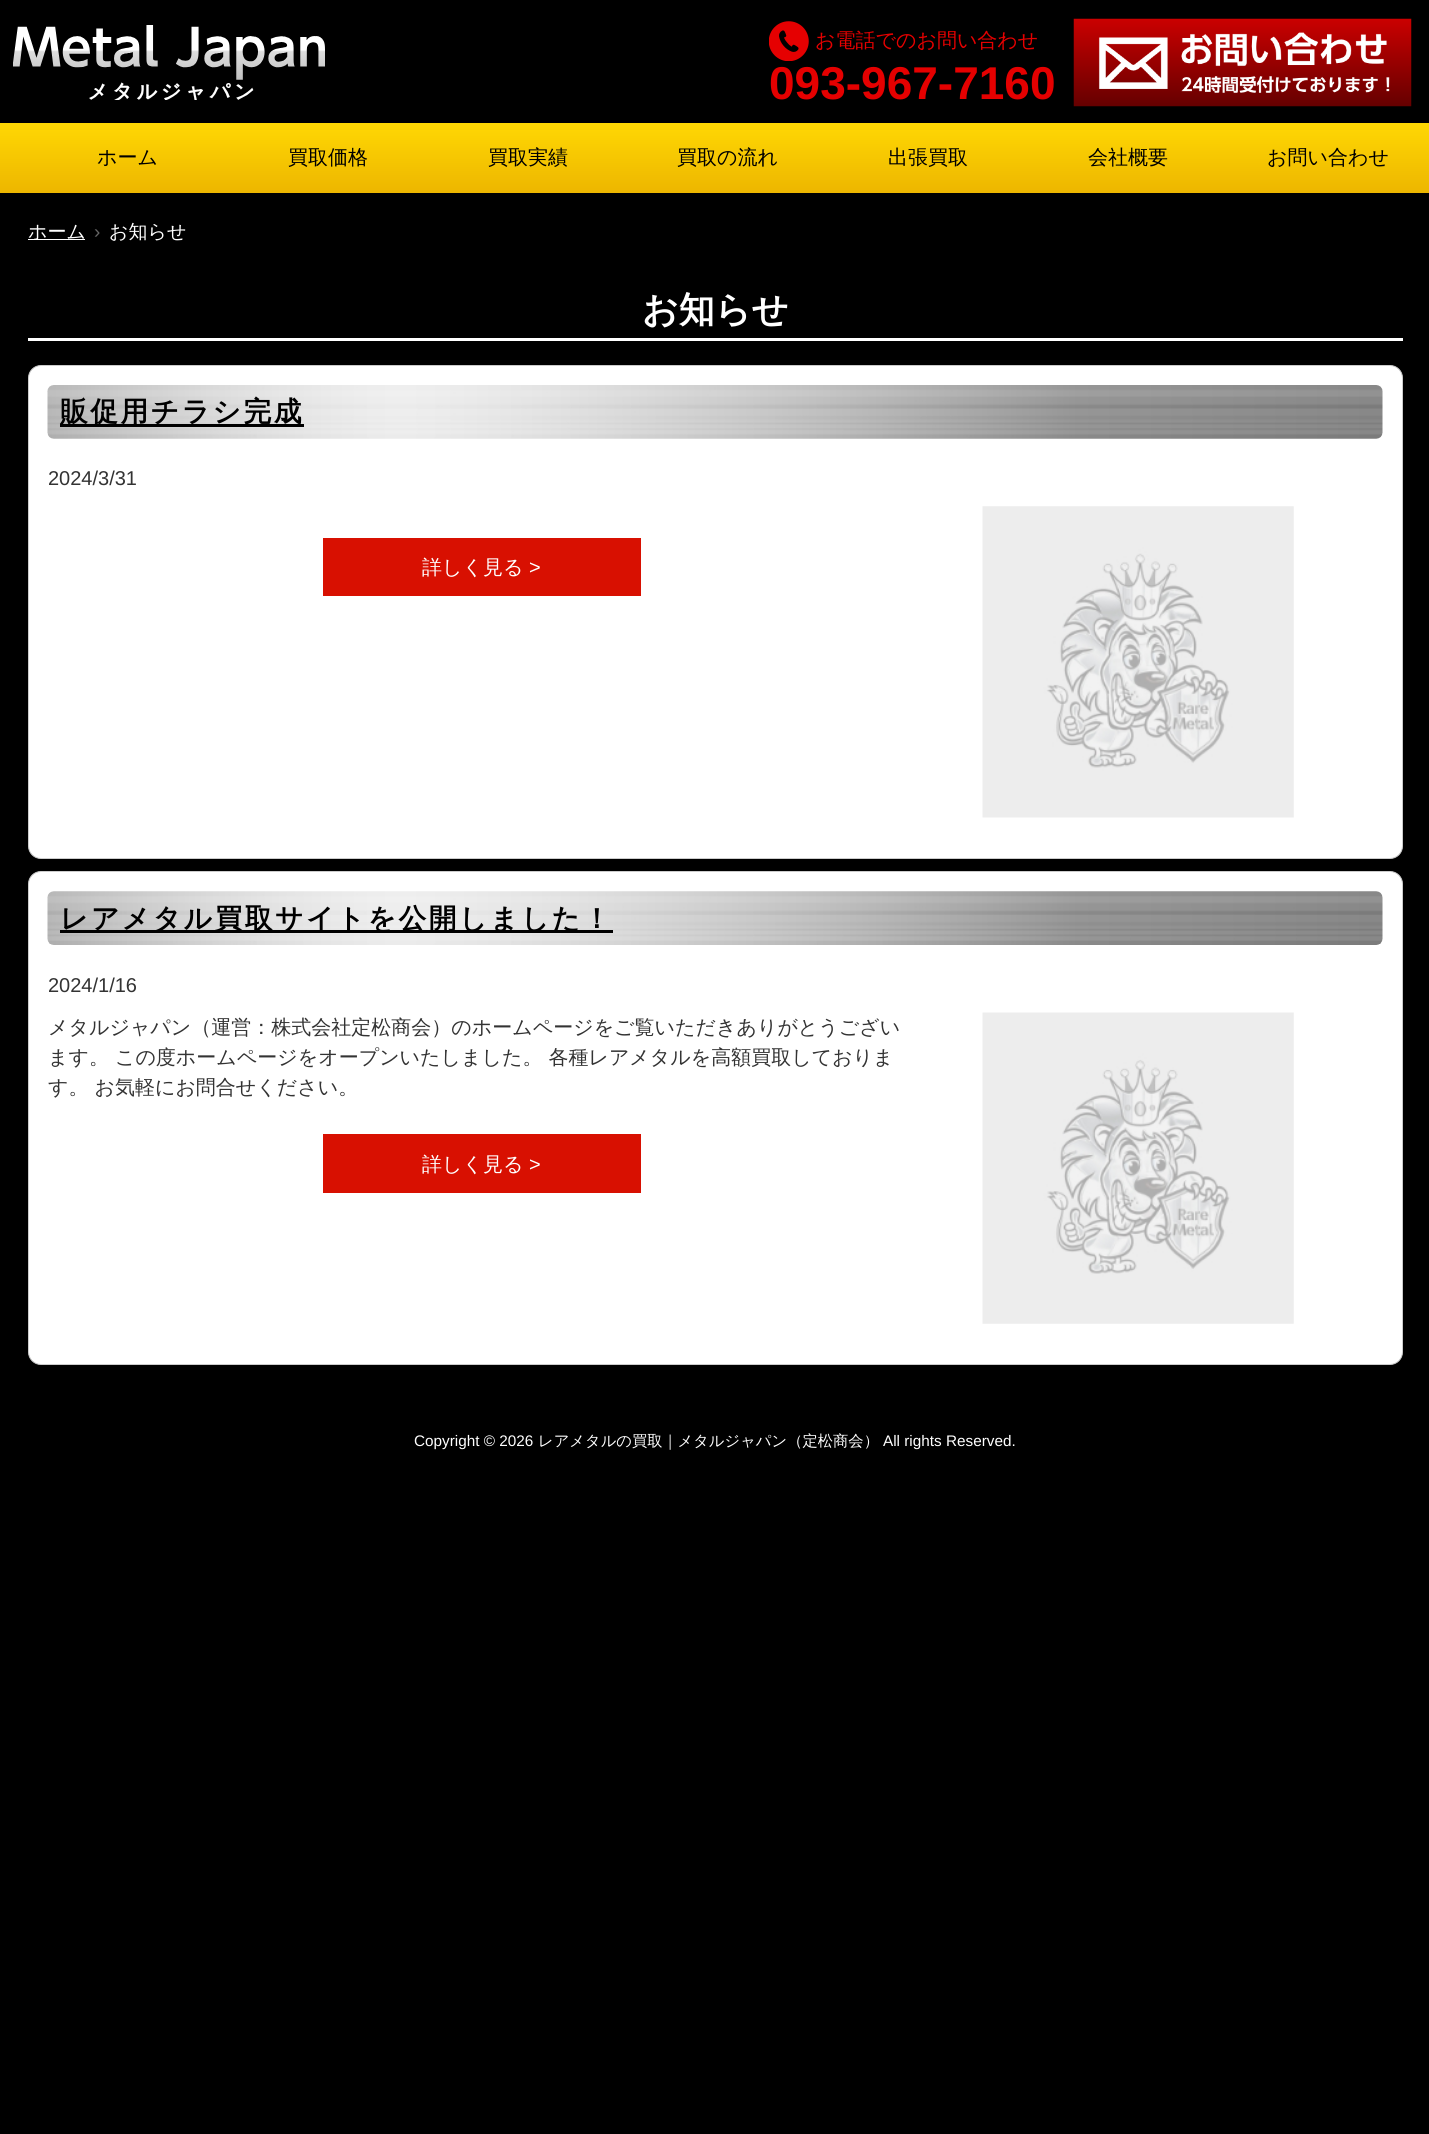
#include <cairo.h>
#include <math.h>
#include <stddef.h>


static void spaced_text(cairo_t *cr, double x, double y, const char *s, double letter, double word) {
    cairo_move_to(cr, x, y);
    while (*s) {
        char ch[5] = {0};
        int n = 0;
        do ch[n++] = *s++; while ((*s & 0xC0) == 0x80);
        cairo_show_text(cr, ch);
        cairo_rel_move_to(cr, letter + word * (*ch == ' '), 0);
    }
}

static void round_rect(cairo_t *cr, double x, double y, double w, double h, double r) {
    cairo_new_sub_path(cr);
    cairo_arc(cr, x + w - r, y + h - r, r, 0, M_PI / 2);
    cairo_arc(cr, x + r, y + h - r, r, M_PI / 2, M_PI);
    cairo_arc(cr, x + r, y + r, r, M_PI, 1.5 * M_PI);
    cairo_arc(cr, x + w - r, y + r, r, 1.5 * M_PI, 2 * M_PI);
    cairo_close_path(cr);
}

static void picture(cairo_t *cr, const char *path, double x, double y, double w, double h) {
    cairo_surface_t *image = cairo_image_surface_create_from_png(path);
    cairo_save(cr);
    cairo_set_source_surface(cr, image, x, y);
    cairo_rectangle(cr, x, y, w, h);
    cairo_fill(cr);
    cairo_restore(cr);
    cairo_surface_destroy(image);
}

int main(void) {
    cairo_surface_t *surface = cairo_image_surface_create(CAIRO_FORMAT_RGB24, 1429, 2134);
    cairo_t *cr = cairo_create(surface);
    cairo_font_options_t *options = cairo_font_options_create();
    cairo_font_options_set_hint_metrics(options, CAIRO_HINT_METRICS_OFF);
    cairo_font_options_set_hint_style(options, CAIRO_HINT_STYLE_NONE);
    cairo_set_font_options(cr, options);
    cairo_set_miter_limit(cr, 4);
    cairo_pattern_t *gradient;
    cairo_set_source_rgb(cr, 0, 0, 0);
    cairo_paint(cr);
    picture(cr, "img1.png", 13, 25, 312, 75);
    picture(cr, "img2.png", 769, 21, 40, 40);
    cairo_select_font_face(cr, "WenQuanYi Zen Hei Medium", CAIRO_FONT_SLANT_NORMAL, CAIRO_FONT_WEIGHT_NORMAL);
    cairo_set_font_size(cr, 20);
    cairo_set_source_rgb(cr, 0.898, 0, 0);
    cairo_move_to(cr, 815, 47);
    cairo_show_text(cr, "お電話でのお問い合わせ");
    cairo_select_font_face(cr, "Liberation Sans", CAIRO_FONT_SLANT_NORMAL, CAIRO_FONT_WEIGHT_BOLD);
    cairo_set_font_size(cr, 46);
    cairo_move_to(cr, 769, 99);
    cairo_show_text(cr, "093-967-7160");
    picture(cr, "img3.png", 1073, 18, 339, 89);
    gradient = cairo_pattern_create_linear(715, 122, 715, 193);
    cairo_pattern_add_color_stop_rgba(gradient, 0, 1, 0.847, 0.012, 1);
    cairo_pattern_add_color_stop_rgba(gradient, 1, 0.929, 0.714, 0, 1);
    cairo_set_source(cr, gradient);
    cairo_pattern_destroy(gradient);
    cairo_rectangle(cr, 0, 123, 1429, 70);
    cairo_fill(cr);
    cairo_select_font_face(cr, "WenQuanYi Zen Hei Medium", CAIRO_FONT_SLANT_NORMAL, CAIRO_FONT_WEIGHT_NORMAL);
    cairo_set_font_size(cr, 20);
    cairo_set_source_rgb(cr, 0, 0, 0);
    cairo_move_to(cr, 97, 164);
    cairo_show_text(cr, "ホーム");
    cairo_move_to(cr, 288, 164);
    cairo_show_text(cr, "買取価格");
    cairo_move_to(cr, 488, 164);
    cairo_show_text(cr, "買取実績");
    cairo_move_to(cr, 677, 164);
    cairo_show_text(cr, "買取の流れ");
    cairo_move_to(cr, 888, 164);
    cairo_show_text(cr, "出張買取");
    cairo_move_to(cr, 1088, 164);
    cairo_show_text(cr, "会社概要");
    cairo_move_to(cr, 1267, 164);
    cairo_show_text(cr, "お問い合わせ");
    cairo_set_source_rgb(cr, 1, 1, 1);
    cairo_rectangle(cr, 28, 239, 57, 1);
    cairo_fill(cr);
    cairo_set_font_size(cr, 19);
    cairo_move_to(cr, 28, 238);
    cairo_show_text(cr, "ホーム");
    cairo_select_font_face(cr, "Liberation Sans", CAIRO_FONT_SLANT_NORMAL, CAIRO_FONT_WEIGHT_NORMAL);
    cairo_set_source_rgb(cr, 0.4, 0.4, 0.4);
    cairo_move_to(cr, 94, 238);
    cairo_show_text(cr, "›");
    cairo_select_font_face(cr, "WenQuanYi Zen Hei Medium", CAIRO_FONT_SLANT_NORMAL, CAIRO_FONT_WEIGHT_NORMAL);
    cairo_set_source_rgb(cr, 1, 1, 1);
    cairo_move_to(cr, 109, 238);
    cairo_show_text(cr, "お知らせ");
    cairo_rectangle(cr, 28, 338, 1375, 3);
    cairo_fill(cr);
    cairo_select_font_face(cr, "WenQuanYi Zen Hei", CAIRO_FONT_SLANT_NORMAL, CAIRO_FONT_WEIGHT_BOLD);
    cairo_set_font_size(cr, 36);
    cairo_move_to(cr, 642, 322);
    cairo_show_text(cr, "お知らせ");
    round_rect(cr, 28.5, 365.5, 1374, 493, 12.5);
    cairo_fill_preserve(cr);
    cairo_set_source_rgb(cr, 0.8, 0.8, 0.8);
    cairo_set_line_width(cr, 1);
    cairo_stroke(cr);
    picture(cr, "img4.png", 47, 385, 1336, 54);
    cairo_set_source_rgb(cr, 0, 0, 0);
    cairo_rectangle(cr, 60, 424, 244, 3);
    cairo_fill(cr);
    cairo_set_font_size(cr, 27.75);
    spaced_text(cr, 60, 421, "販促用チラシ完成", 2.5, 0);
    cairo_select_font_face(cr, "Liberation Sans", CAIRO_FONT_SLANT_NORMAL, CAIRO_FONT_WEIGHT_NORMAL);
    cairo_set_font_size(cr, 20);
    cairo_set_source_rgb(cr, 0.2, 0.2, 0.2);
    cairo_move_to(cr, 48, 485);
    cairo_show_text(cr, "2024/3/31");
    cairo_set_source_rgb(cr, 0.847, 0.063, 0.004);
    cairo_rectangle(cr, 323, 538, 318, 58);
    cairo_fill(cr);
    cairo_select_font_face(cr, "WenQuanYi Zen Hei Medium", CAIRO_FONT_SLANT_NORMAL, CAIRO_FONT_WEIGHT_NORMAL);
    cairo_set_source_rgb(cr, 1, 1, 1);
    cairo_move_to(cr, 422, 574);
    cairo_show_text(cr, "詳しく見る");
    cairo_select_font_face(cr, "Liberation Sans", CAIRO_FONT_SLANT_NORMAL, CAIRO_FONT_WEIGHT_NORMAL);
    cairo_move_to(cr, 529, 574);
    cairo_show_text(cr, ">");
    picture(cr, "img5.png", 982, 506, 312, 312);
    round_rect(cr, 28.5, 871.5, 1374, 493, 12.5);
    cairo_fill_preserve(cr);
    cairo_set_source_rgb(cr, 0.8, 0.8, 0.8);
    cairo_stroke(cr);
    picture(cr, "img6.png", 47, 891, 1336, 54);
    cairo_set_source_rgb(cr, 0, 0, 0);
    cairo_rectangle(cr, 60, 930, 553, 3);
    cairo_fill(cr);
    cairo_select_font_face(cr, "WenQuanYi Zen Hei", CAIRO_FONT_SLANT_NORMAL, CAIRO_FONT_WEIGHT_BOLD);
    cairo_set_font_size(cr, 27.75);
    spaced_text(cr, 60, 928, "レアメタル買取サイトを公開しました！", 2.5, 0);
    cairo_select_font_face(cr, "Liberation Sans", CAIRO_FONT_SLANT_NORMAL, CAIRO_FONT_WEIGHT_NORMAL);
    cairo_set_font_size(cr, 20);
    cairo_set_source_rgb(cr, 0.2, 0.2, 0.2);
    cairo_move_to(cr, 48, 992);
    cairo_show_text(cr, "2024/1/16");
    cairo_select_font_face(cr, "WenQuanYi Zen Hei Medium", CAIRO_FONT_SLANT_NORMAL, CAIRO_FONT_WEIGHT_NORMAL);
    cairo_move_to(cr, 48, 1034);
    cairo_show_text(cr, "メタルジャパン（運営：株式会社定松商会）のホームページをご覧いただきありがとうござい");
    cairo_move_to(cr, 48, 1064);
    cairo_show_text(cr, "ます。 この度ホームページをオープンいたしました。 各種レアメタルを高額買取しておりま");
    cairo_move_to(cr, 48, 1094);
    cairo_show_text(cr, "す。 お気軽にお問合せください。");
    cairo_set_source_rgb(cr, 0.847, 0.063, 0.004);
    cairo_rectangle(cr, 323, 1134, 318, 59);
    cairo_fill(cr);
    cairo_set_source_rgb(cr, 1, 1, 1);
    cairo_move_to(cr, 422, 1171);
    cairo_show_text(cr, "詳しく見る");
    cairo_select_font_face(cr, "Liberation Sans", CAIRO_FONT_SLANT_NORMAL, CAIRO_FONT_WEIGHT_NORMAL);
    cairo_move_to(cr, 529, 1171);
    cairo_show_text(cr, ">");
    picture(cr, "img7.png", 982, 1012, 312, 312);
    cairo_set_font_size(cr, 15.3);
    cairo_move_to(cr, 414, 1446);
    cairo_show_text(cr, "Copyright © 2026");
    cairo_select_font_face(cr, "WenQuanYi Zen Hei Medium", CAIRO_FONT_SLANT_NORMAL, CAIRO_FONT_WEIGHT_NORMAL);
    cairo_move_to(cr, 538, 1446);
    cairo_show_text(cr, "レアメタルの買取｜メタルジャパン（定松商会）");
    cairo_select_font_face(cr, "Liberation Sans", CAIRO_FONT_SLANT_NORMAL, CAIRO_FONT_WEIGHT_NORMAL);
    cairo_move_to(cr, 883, 1446);
    cairo_show_text(cr, "All rights Reserved.");
    cairo_surface_write_to_png(surface, "page.png");
    cairo_font_options_destroy(options);
    cairo_destroy(cr);
    cairo_surface_destroy(surface);
    return 0;
}
